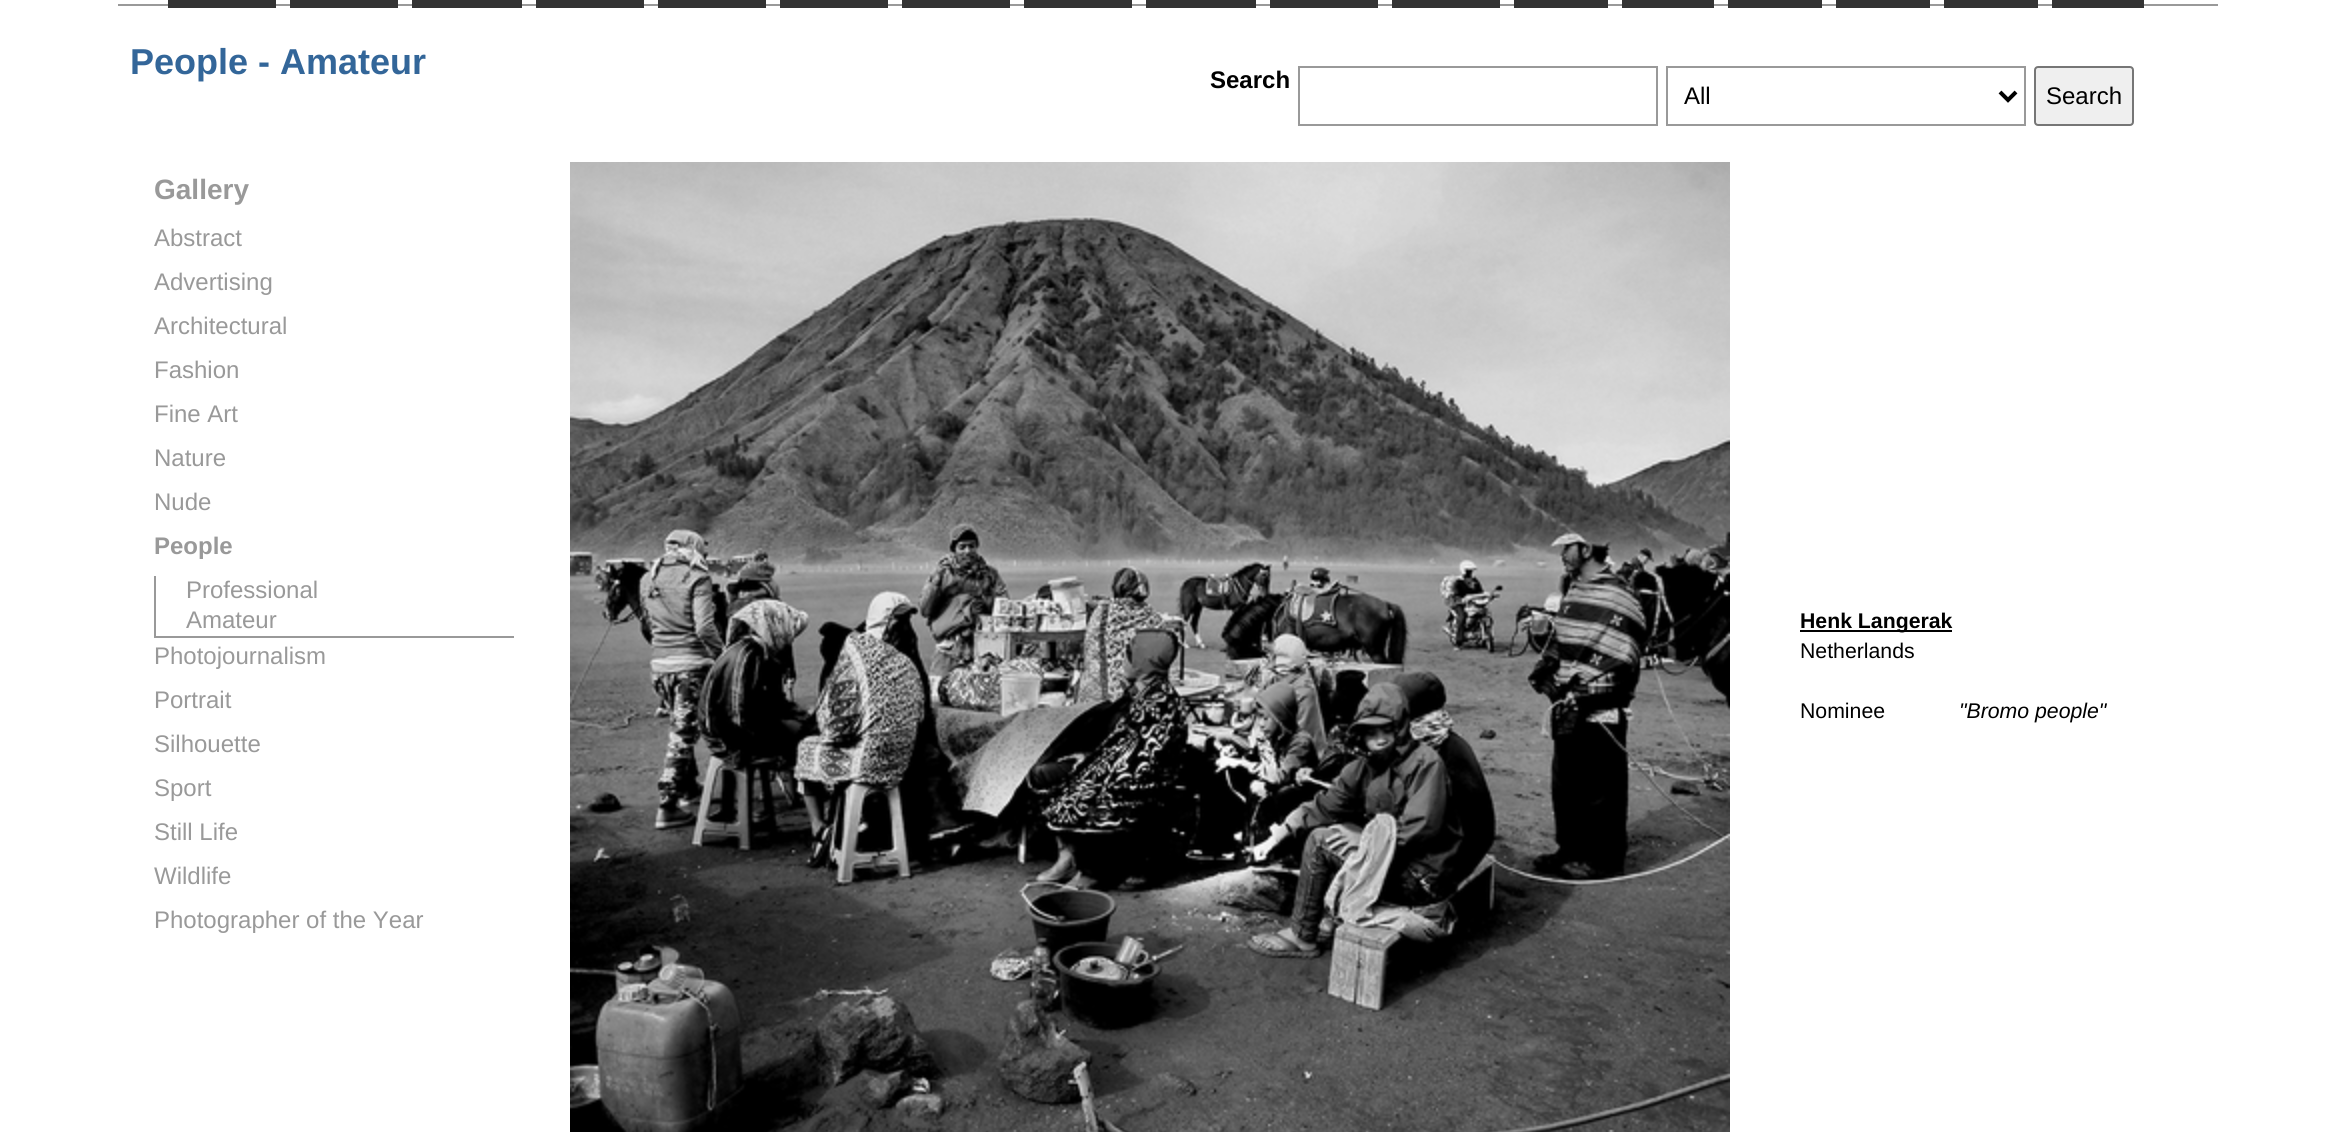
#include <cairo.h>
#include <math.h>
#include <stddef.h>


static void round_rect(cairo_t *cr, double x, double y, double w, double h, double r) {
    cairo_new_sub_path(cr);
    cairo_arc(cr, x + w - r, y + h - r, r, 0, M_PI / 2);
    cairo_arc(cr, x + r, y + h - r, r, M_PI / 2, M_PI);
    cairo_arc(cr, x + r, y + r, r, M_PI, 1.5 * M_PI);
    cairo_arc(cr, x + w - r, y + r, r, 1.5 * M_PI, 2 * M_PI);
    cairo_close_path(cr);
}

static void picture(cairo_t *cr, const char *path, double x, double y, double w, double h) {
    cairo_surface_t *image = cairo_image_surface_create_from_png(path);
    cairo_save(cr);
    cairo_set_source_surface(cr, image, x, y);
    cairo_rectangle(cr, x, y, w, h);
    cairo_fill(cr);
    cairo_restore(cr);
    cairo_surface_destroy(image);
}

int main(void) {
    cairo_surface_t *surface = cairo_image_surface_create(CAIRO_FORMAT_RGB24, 2336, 1132);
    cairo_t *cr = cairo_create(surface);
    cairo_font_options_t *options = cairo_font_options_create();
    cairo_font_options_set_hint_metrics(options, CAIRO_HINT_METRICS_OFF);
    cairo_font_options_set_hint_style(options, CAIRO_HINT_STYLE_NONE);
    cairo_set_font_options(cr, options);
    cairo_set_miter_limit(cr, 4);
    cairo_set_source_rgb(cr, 1, 1, 1);
    cairo_paint(cr);
    cairo_set_source_rgb(cr, 0.6, 0.6, 0.6);
    cairo_rectangle(cr, 118, 4, 2100, 2);
    cairo_fill(cr);
    cairo_set_source_rgb(cr, 0.2, 0.2, 0.2);
    cairo_rectangle(cr, 168, 0, 108, 8);
    cairo_fill(cr);
    cairo_rectangle(cr, 290, 0, 108, 8);
    cairo_fill(cr);
    cairo_rectangle(cr, 412, 0, 110, 8);
    cairo_fill(cr);
    cairo_rectangle(cr, 536, 0, 108, 8);
    cairo_fill(cr);
    cairo_rectangle(cr, 658, 0, 108, 8);
    cairo_fill(cr);
    cairo_rectangle(cr, 780, 0, 108, 8);
    cairo_fill(cr);
    cairo_rectangle(cr, 902, 0, 108, 8);
    cairo_fill(cr);
    cairo_rectangle(cr, 1024, 0, 108, 8);
    cairo_fill(cr);
    cairo_rectangle(cr, 1146, 0, 110, 8);
    cairo_fill(cr);
    cairo_rectangle(cr, 1270, 0, 108, 8);
    cairo_fill(cr);
    cairo_rectangle(cr, 1392, 0, 108, 8);
    cairo_fill(cr);
    cairo_rectangle(cr, 1514, 0, 94, 8);
    cairo_fill(cr);
    cairo_rectangle(cr, 1622, 0, 92, 8);
    cairo_fill(cr);
    cairo_rectangle(cr, 1728, 0, 94, 8);
    cairo_fill(cr);
    cairo_rectangle(cr, 1836, 0, 94, 8);
    cairo_fill(cr);
    cairo_rectangle(cr, 1944, 0, 94, 8);
    cairo_fill(cr);
    cairo_rectangle(cr, 2052, 0, 92, 8);
    cairo_fill(cr);
    cairo_select_font_face(cr, "Liberation Sans", CAIRO_FONT_SLANT_NORMAL, CAIRO_FONT_WEIGHT_BOLD);
    cairo_set_font_size(cr, 36);
    cairo_set_source_rgb(cr, 0.2, 0.4, 0.6);
    cairo_move_to(cr, 130, 74);
    cairo_show_text(cr, "People - Amateur");
    cairo_set_font_size(cr, 24);
    cairo_set_source_rgb(cr, 0, 0, 0);
    cairo_move_to(cr, 1210, 88);
    cairo_show_text(cr, "Search");
    cairo_rectangle(cr, 1299, 67, 358, 58);
    cairo_set_source_rgb(cr, 0.6, 0.6, 0.6);
    cairo_stroke(cr);
    cairo_rectangle(cr, 1667, 67, 358, 58);
    cairo_stroke(cr);
    cairo_new_path(cr);
    cairo_move_to(cr, 2000, 92);
    cairo_line_to(cr, 2008, 100);
    cairo_line_to(cr, 2016, 92);
    cairo_set_source_rgb(cr, 0, 0, 0);
    cairo_set_line_width(cr, 4);
    cairo_stroke(cr);
    cairo_select_font_face(cr, "Liberation Sans", CAIRO_FONT_SLANT_NORMAL, CAIRO_FONT_WEIGHT_NORMAL);
    cairo_move_to(cr, 1684, 104);
    cairo_show_text(cr, "All");
    cairo_set_source_rgb(cr, 0.937, 0.937, 0.937);
    round_rect(cr, 2035, 67, 98, 58, 3);
    cairo_fill_preserve(cr);
    cairo_set_source_rgb(cr, 0.463, 0.463, 0.463);
    cairo_set_line_width(cr, 2);
    cairo_stroke(cr);
    cairo_set_source_rgb(cr, 0, 0, 0);
    cairo_move_to(cr, 2046, 104);
    cairo_show_text(cr, "Search");
    cairo_select_font_face(cr, "Liberation Sans", CAIRO_FONT_SLANT_NORMAL, CAIRO_FONT_WEIGHT_BOLD);
    cairo_set_font_size(cr, 28);
    cairo_set_source_rgb(cr, 0.6, 0.6, 0.6);
    cairo_move_to(cr, 154, 199);
    cairo_show_text(cr, "Gallery");
    cairo_select_font_face(cr, "Liberation Sans", CAIRO_FONT_SLANT_NORMAL, CAIRO_FONT_WEIGHT_NORMAL);
    cairo_set_font_size(cr, 24);
    cairo_move_to(cr, 154, 246);
    cairo_show_text(cr, "Abstract");
    cairo_move_to(cr, 154, 290);
    cairo_show_text(cr, "Advertising");
    cairo_move_to(cr, 154, 334);
    cairo_show_text(cr, "Architectural");
    cairo_move_to(cr, 154, 378);
    cairo_show_text(cr, "Fashion");
    cairo_move_to(cr, 154, 422);
    cairo_show_text(cr, "Fine Art");
    cairo_move_to(cr, 154, 466);
    cairo_show_text(cr, "Nature");
    cairo_move_to(cr, 154, 510);
    cairo_show_text(cr, "Nude");
    cairo_select_font_face(cr, "Liberation Sans", CAIRO_FONT_SLANT_NORMAL, CAIRO_FONT_WEIGHT_BOLD);
    cairo_move_to(cr, 154, 554);
    cairo_show_text(cr, "People");
    cairo_rectangle(cr, 154, 636, 360, 2);
    cairo_fill(cr);
    cairo_rectangle(cr, 154, 576, 2, 62);
    cairo_fill(cr);
    cairo_select_font_face(cr, "Liberation Sans", CAIRO_FONT_SLANT_NORMAL, CAIRO_FONT_WEIGHT_NORMAL);
    cairo_move_to(cr, 186, 598);
    cairo_show_text(cr, "Professional");
    cairo_move_to(cr, 186, 628);
    cairo_show_text(cr, "Amateur");
    cairo_move_to(cr, 154, 664);
    cairo_show_text(cr, "Photojournalism");
    cairo_move_to(cr, 154, 708);
    cairo_show_text(cr, "Portrait");
    cairo_move_to(cr, 154, 752);
    cairo_show_text(cr, "Silhouette");
    cairo_move_to(cr, 154, 796);
    cairo_show_text(cr, "Sport");
    cairo_move_to(cr, 154, 840);
    cairo_show_text(cr, "Still Life");
    cairo_move_to(cr, 154, 884);
    cairo_show_text(cr, "Wildlife");
    cairo_move_to(cr, 154, 928);
    cairo_show_text(cr, "Photographer of the Year");
    picture(cr, "img1.png", 570, 162, 1160, 970);
    cairo_set_source_rgb(cr, 0, 0, 0);
    cairo_rectangle(cr, 1800, 630, 152, 2);
    cairo_fill(cr);
    cairo_select_font_face(cr, "Liberation Sans", CAIRO_FONT_SLANT_NORMAL, CAIRO_FONT_WEIGHT_BOLD);
    cairo_set_font_size(cr, 21.25);
    cairo_move_to(cr, 1800, 628);
    cairo_show_text(cr, "Henk Langerak");
    cairo_select_font_face(cr, "Liberation Sans", CAIRO_FONT_SLANT_NORMAL, CAIRO_FONT_WEIGHT_NORMAL);
    cairo_move_to(cr, 1800, 658);
    cairo_show_text(cr, "Netherlands");
    cairo_move_to(cr, 1800, 718);
    cairo_show_text(cr, "Nominee");
    cairo_select_font_face(cr, "Liberation Sans", CAIRO_FONT_SLANT_ITALIC, CAIRO_FONT_WEIGHT_NORMAL);
    cairo_move_to(cr, 1959, 718);
    cairo_show_text(cr, "\"Bromo people\"");
    cairo_surface_write_to_png(surface, "page.png");
    cairo_font_options_destroy(options);
    cairo_destroy(cr);
    cairo_surface_destroy(surface);
    return 0;
}
